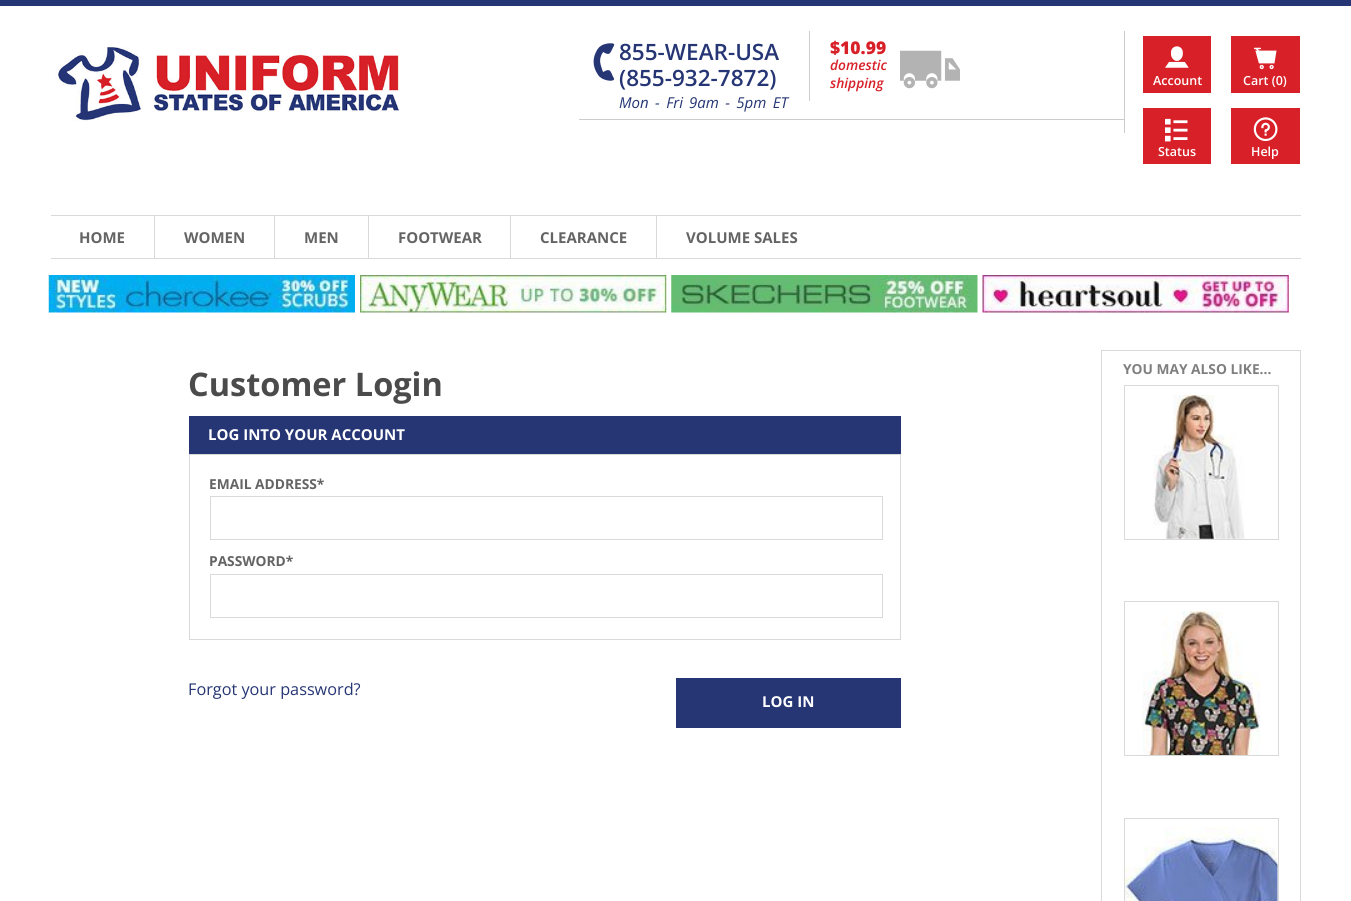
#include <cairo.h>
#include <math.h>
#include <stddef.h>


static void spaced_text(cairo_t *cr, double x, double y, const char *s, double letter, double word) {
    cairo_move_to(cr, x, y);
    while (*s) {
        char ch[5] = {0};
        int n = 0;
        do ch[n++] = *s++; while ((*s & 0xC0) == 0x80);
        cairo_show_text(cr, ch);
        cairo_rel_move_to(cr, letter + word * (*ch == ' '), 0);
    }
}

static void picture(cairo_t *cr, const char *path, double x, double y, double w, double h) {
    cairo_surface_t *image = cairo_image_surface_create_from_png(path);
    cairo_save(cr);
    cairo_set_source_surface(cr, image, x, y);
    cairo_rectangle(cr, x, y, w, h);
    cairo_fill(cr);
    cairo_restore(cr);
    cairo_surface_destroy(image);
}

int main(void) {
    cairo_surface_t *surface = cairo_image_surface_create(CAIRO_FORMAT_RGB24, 1351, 901);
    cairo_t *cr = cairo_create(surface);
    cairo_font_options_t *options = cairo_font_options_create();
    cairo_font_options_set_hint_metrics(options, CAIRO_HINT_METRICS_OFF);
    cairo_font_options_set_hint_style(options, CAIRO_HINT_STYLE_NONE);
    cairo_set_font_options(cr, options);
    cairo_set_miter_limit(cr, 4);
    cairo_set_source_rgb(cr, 1, 1, 1);
    cairo_paint(cr);
    cairo_set_source_rgb(cr, 0.149, 0.212, 0.459);
    cairo_rectangle(cr, 0, 0, 1351, 6);
    cairo_fill(cr);
    picture(cr, "img1.png", 55, 47, 345, 74);
    cairo_set_source_rgb(cr, 0.8, 0.8, 0.8);
    cairo_rectangle(cr, 1124, 31, 1, 102);
    cairo_fill(cr);
    cairo_rectangle(cr, 579, 119, 545, 1);
    cairo_fill(cr);
    picture(cr, "img2.png", 593, 43, 22, 38);
    cairo_select_font_face(cr, "Open Sans SemiBold", CAIRO_FONT_SLANT_NORMAL, CAIRO_FONT_WEIGHT_NORMAL);
    cairo_set_font_size(cr, 22.5);
    cairo_set_source_rgb(cr, 0.149, 0.212, 0.459);
    cairo_move_to(cr, 619, 60);
    cairo_show_text(cr, "855-WEAR-USA");
    cairo_move_to(cr, 619, 86);
    cairo_show_text(cr, "(855-932-7872)");
    cairo_select_font_face(cr, "Open Sans", CAIRO_FONT_SLANT_ITALIC, CAIRO_FONT_WEIGHT_NORMAL);
    cairo_set_font_size(cr, 15);
    spaced_text(cr, 619, 108, "Mon - Fri", 0, 2.5);
    spaced_text(cr, 689, 108, "9am - 5pm ET", 0, 2.5);
    cairo_set_source_rgb(cr, 0.8, 0.8, 0.8);
    cairo_rectangle(cr, 809, 31, 1, 70);
    cairo_fill(cr);
    cairo_select_font_face(cr, "Open Sans ExtraBold", CAIRO_FONT_SLANT_NORMAL, CAIRO_FONT_WEIGHT_NORMAL);
    cairo_set_font_size(cr, 17.5);
    cairo_set_source_rgb(cr, 0.847, 0.125, 0.157);
    cairo_move_to(cr, 830, 54);
    cairo_show_text(cr, "$10.99");
    cairo_select_font_face(cr, "Open Sans SemiBold", CAIRO_FONT_SLANT_ITALIC, CAIRO_FONT_WEIGHT_NORMAL);
    cairo_set_font_size(cr, 13.75);
    cairo_move_to(cr, 830, 70);
    cairo_show_text(cr, "domestic");
    cairo_move_to(cr, 830, 88);
    cairo_show_text(cr, "shipping");
    picture(cr, "img3.png", 900, 50, 60, 39);
    cairo_rectangle(cr, 1143, 36, 68, 57);
    cairo_fill(cr);
    picture(cr, "img4.png", 1165, 46, 24, 22);
    cairo_select_font_face(cr, "Open Sans SemiBold", CAIRO_FONT_SLANT_NORMAL, CAIRO_FONT_WEIGHT_NORMAL);
    cairo_set_font_size(cr, 12.5);
    cairo_set_source_rgb(cr, 1, 1, 1);
    cairo_move_to(cr, 1153, 85);
    cairo_show_text(cr, "Account");
    cairo_set_source_rgb(cr, 0.847, 0.125, 0.157);
    cairo_rectangle(cr, 1231, 36, 69, 57);
    cairo_fill(cr);
    picture(cr, "img5.png", 1254, 47, 23, 23);
    cairo_set_source_rgb(cr, 1, 1, 1);
    cairo_move_to(cr, 1243, 85);
    cairo_show_text(cr, "Cart (0)");
    cairo_set_source_rgb(cr, 0.847, 0.125, 0.157);
    cairo_rectangle(cr, 1143, 108, 68, 56);
    cairo_fill(cr);
    picture(cr, "img6.png", 1165, 118, 23, 24);
    cairo_set_source_rgb(cr, 1, 1, 1);
    cairo_move_to(cr, 1158, 156);
    cairo_show_text(cr, "Status");
    cairo_set_source_rgb(cr, 0.847, 0.125, 0.157);
    cairo_rectangle(cr, 1231, 108, 69, 56);
    cairo_fill(cr);
    picture(cr, "img7.png", 1253, 117, 25, 25);
    cairo_set_source_rgb(cr, 1, 1, 1);
    cairo_move_to(cr, 1251, 156);
    cairo_show_text(cr, "Help");
    cairo_set_source_rgb(cr, 0.851, 0.851, 0.851);
    cairo_rectangle(cr, 51, 215, 1250, 1);
    cairo_fill(cr);
    cairo_rectangle(cr, 51, 258, 1250, 1);
    cairo_fill(cr);
    cairo_select_font_face(cr, "Open Sans", CAIRO_FONT_SLANT_NORMAL, CAIRO_FONT_WEIGHT_BOLD);
    cairo_set_font_size(cr, 15);
    cairo_set_source_rgb(cr, 0.392, 0.392, 0.392);
    cairo_move_to(cr, 79, 243);
    cairo_show_text(cr, "HOME");
    cairo_set_source_rgb(cr, 0.851, 0.851, 0.851);
    cairo_rectangle(cr, 154, 216, 1, 42);
    cairo_fill(cr);
    cairo_set_source_rgb(cr, 0.392, 0.392, 0.392);
    cairo_move_to(cr, 184, 243);
    cairo_show_text(cr, "WOMEN");
    cairo_set_source_rgb(cr, 0.851, 0.851, 0.851);
    cairo_rectangle(cr, 274, 216, 1, 42);
    cairo_fill(cr);
    cairo_set_source_rgb(cr, 0.392, 0.392, 0.392);
    cairo_move_to(cr, 304, 243);
    cairo_show_text(cr, "MEN");
    cairo_set_source_rgb(cr, 0.851, 0.851, 0.851);
    cairo_rectangle(cr, 368, 216, 1, 42);
    cairo_fill(cr);
    cairo_set_source_rgb(cr, 0.392, 0.392, 0.392);
    cairo_move_to(cr, 398, 243);
    cairo_show_text(cr, "FOOTWEAR");
    cairo_set_source_rgb(cr, 0.851, 0.851, 0.851);
    cairo_rectangle(cr, 510, 216, 1, 42);
    cairo_fill(cr);
    cairo_set_source_rgb(cr, 0.392, 0.392, 0.392);
    cairo_move_to(cr, 540, 243);
    cairo_show_text(cr, "CLEARANCE");
    cairo_set_source_rgb(cr, 0.851, 0.851, 0.851);
    cairo_rectangle(cr, 656, 216, 1, 42);
    cairo_fill(cr);
    cairo_set_source_rgb(cr, 0.392, 0.392, 0.392);
    cairo_move_to(cr, 686, 243);
    cairo_show_text(cr, "VOLUME SALES");
    picture(cr, "img8.png", 48, 275, 307, 38);
    picture(cr, "img9.png", 360, 275, 307, 38);
    picture(cr, "img10.png", 671, 275, 307, 38);
    picture(cr, "img11.png", 982, 275, 307, 38);
    cairo_rectangle(cr, 1101.5, 350.5, 199, 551);
    cairo_set_source_rgb(cr, 0.851, 0.851, 0.851);
    cairo_set_line_width(cr, 1);
    cairo_stroke(cr);
    cairo_set_font_size(cr, 13.75);
    cairo_set_source_rgb(cr, 0.498, 0.498, 0.498);
    cairo_move_to(cr, 1123, 374);
    cairo_show_text(cr, "YOU MAY ALSO LIKE...");
    cairo_rectangle(cr, 1124.5, 385.5, 154, 154);
    cairo_set_source_rgb(cr, 0.851, 0.851, 0.851);
    cairo_stroke(cr);
    picture(cr, "img12.png", 1153, 395, 92, 144);
    cairo_rectangle(cr, 1124.5, 601.5, 154, 154);
    cairo_stroke(cr);
    picture(cr, "img13.png", 1142, 611, 118, 144);
    cairo_rectangle(cr, 1124.5, 818.5, 154, 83);
    cairo_stroke(cr);
    picture(cr, "img14.png", 1125, 827, 153, 74);
    cairo_set_font_size(cr, 32.5);
    cairo_set_source_rgb(cr, 0.294, 0.294, 0.294);
    cairo_move_to(cr, 188, 396);
    cairo_show_text(cr, "Customer Login");
    cairo_set_source_rgb(cr, 0.149, 0.212, 0.459);
    cairo_rectangle(cr, 189, 416, 712, 38);
    cairo_fill(cr);
    cairo_set_font_size(cr, 15);
    cairo_set_source_rgb(cr, 1, 1, 1);
    cairo_move_to(cr, 208, 440);
    cairo_show_text(cr, "LOG INTO YOUR ACCOUNT");
    cairo_rectangle(cr, 189.5, 454.5, 711, 185);
    cairo_set_source_rgb(cr, 0.851, 0.851, 0.851);
    cairo_stroke(cr);
    cairo_set_font_size(cr, 13.75);
    cairo_set_source_rgb(cr, 0.392, 0.392, 0.392);
    cairo_move_to(cr, 209, 489);
    cairo_show_text(cr, "EMAIL ADDRESS*");
    cairo_rectangle(cr, 210.5, 496.5, 672, 43);
    cairo_set_source_rgb(cr, 0.851, 0.851, 0.851);
    cairo_stroke(cr);
    cairo_set_source_rgb(cr, 0.392, 0.392, 0.392);
    cairo_move_to(cr, 209, 566);
    cairo_show_text(cr, "PASSWORD*");
    cairo_rectangle(cr, 210.5, 574.5, 672, 43);
    cairo_set_source_rgb(cr, 0.851, 0.851, 0.851);
    cairo_stroke(cr);
    cairo_select_font_face(cr, "Open Sans", CAIRO_FONT_SLANT_NORMAL, CAIRO_FONT_WEIGHT_NORMAL);
    cairo_set_font_size(cr, 16.25);
    cairo_set_source_rgb(cr, 0.149, 0.212, 0.459);
    cairo_move_to(cr, 188, 695);
    cairo_show_text(cr, "Forgot your password?");
    cairo_rectangle(cr, 676, 678, 225, 50);
    cairo_fill(cr);
    cairo_select_font_face(cr, "Open Sans", CAIRO_FONT_SLANT_NORMAL, CAIRO_FONT_WEIGHT_BOLD);
    cairo_set_font_size(cr, 15);
    cairo_set_source_rgb(cr, 1, 1, 1);
    cairo_move_to(cr, 762, 707);
    cairo_show_text(cr, "LOG IN");
    cairo_surface_write_to_png(surface, "page.png");
    cairo_font_options_destroy(options);
    cairo_destroy(cr);
    cairo_surface_destroy(surface);
    return 0;
}
